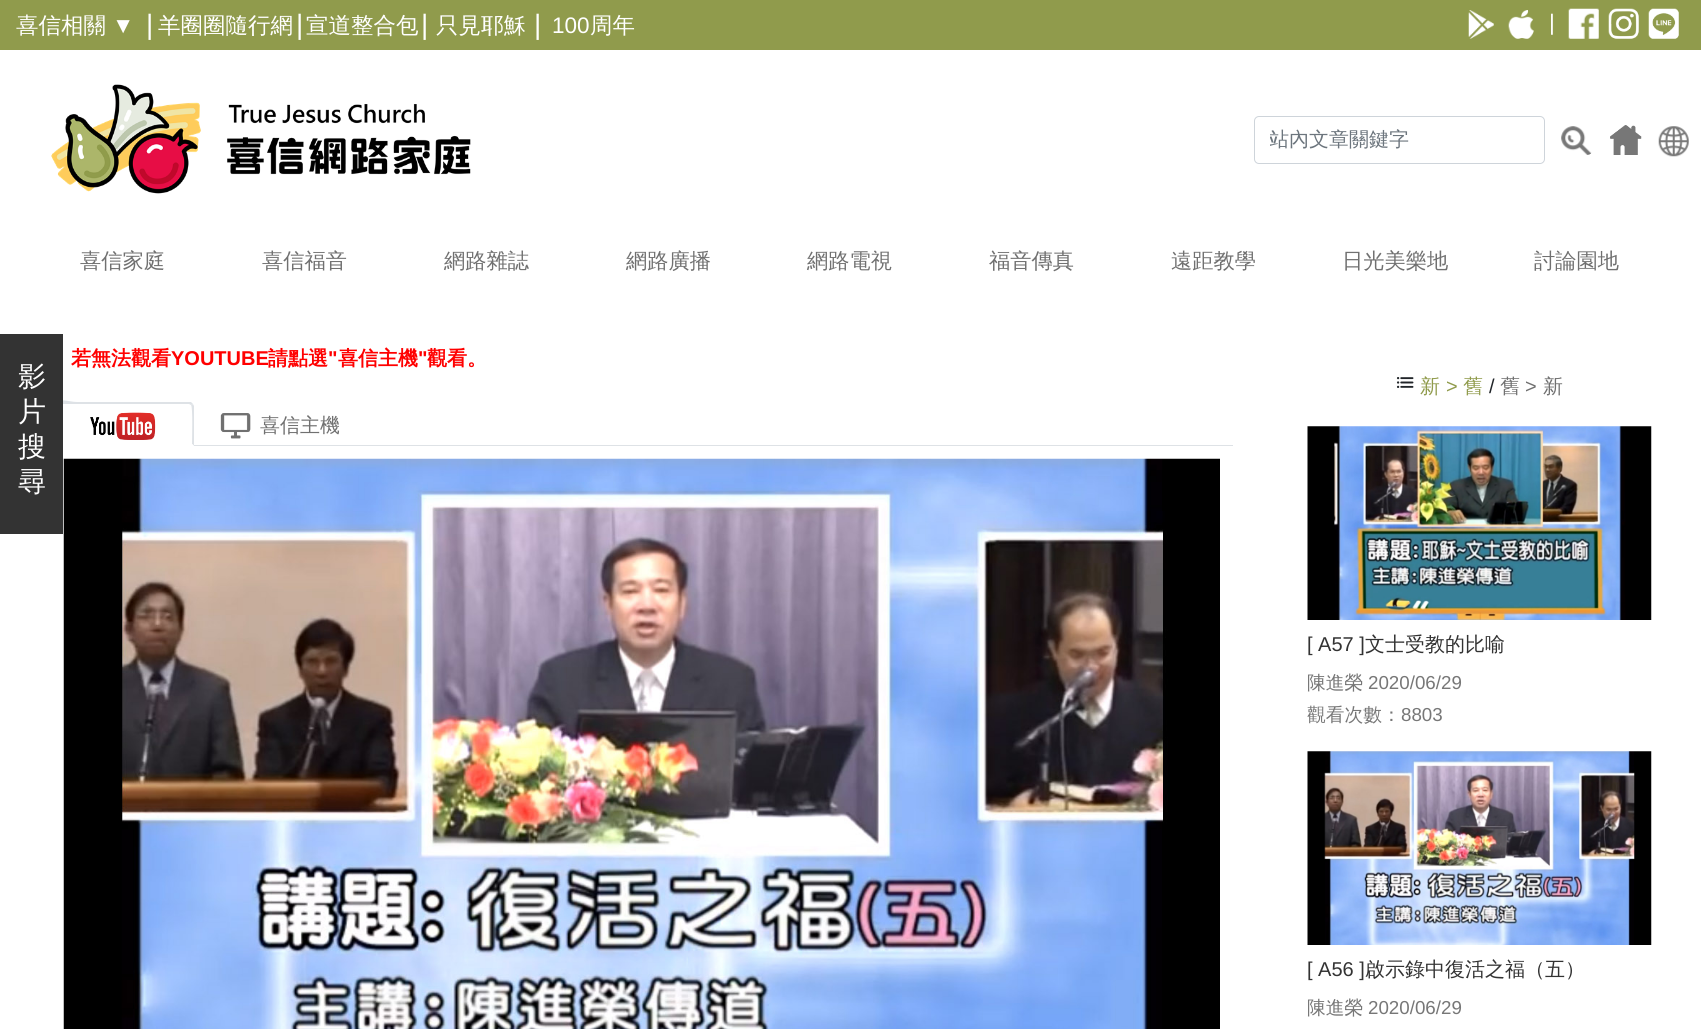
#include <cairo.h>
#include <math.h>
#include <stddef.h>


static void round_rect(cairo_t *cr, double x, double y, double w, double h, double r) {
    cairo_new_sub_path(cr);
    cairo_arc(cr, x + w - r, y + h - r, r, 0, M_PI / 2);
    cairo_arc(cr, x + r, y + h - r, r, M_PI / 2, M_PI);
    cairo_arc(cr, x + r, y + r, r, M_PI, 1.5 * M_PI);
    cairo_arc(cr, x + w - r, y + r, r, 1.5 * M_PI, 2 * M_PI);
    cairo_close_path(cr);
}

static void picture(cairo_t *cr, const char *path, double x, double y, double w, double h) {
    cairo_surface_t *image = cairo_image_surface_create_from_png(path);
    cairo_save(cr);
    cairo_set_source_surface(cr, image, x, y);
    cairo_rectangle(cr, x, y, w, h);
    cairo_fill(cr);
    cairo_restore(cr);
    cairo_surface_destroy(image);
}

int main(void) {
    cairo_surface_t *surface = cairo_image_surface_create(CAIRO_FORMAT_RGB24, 1701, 1029);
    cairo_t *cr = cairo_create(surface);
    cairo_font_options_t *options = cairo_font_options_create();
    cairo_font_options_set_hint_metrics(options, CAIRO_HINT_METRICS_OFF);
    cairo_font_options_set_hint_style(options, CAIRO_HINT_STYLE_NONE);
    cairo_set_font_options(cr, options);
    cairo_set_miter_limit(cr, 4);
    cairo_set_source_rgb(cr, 1, 1, 1);
    cairo_paint(cr);
    cairo_set_source_rgb(cr, 0.565, 0.608, 0.298);
    cairo_rectangle(cr, 0, 0, 1701, 50);
    cairo_fill(cr);
    cairo_select_font_face(cr, "WenQuanYi Zen Hei Medium", CAIRO_FONT_SLANT_NORMAL, CAIRO_FONT_WEIGHT_NORMAL);
    cairo_set_font_size(cr, 22.5);
    cairo_set_source_rgb(cr, 1, 1, 1);
    cairo_move_to(cr, 16, 33);
    cairo_show_text(cr, "喜信相關");
    cairo_select_font_face(cr, "Liberation Sans", CAIRO_FONT_SLANT_NORMAL, CAIRO_FONT_WEIGHT_NORMAL);
    cairo_move_to(cr, 112, 33);
    cairo_show_text(cr, "▼");
    cairo_set_font_size(cr, 28);
    cairo_move_to(cr, 146, 34);
    cairo_show_text(cr, "|");
    cairo_select_font_face(cr, "WenQuanYi Zen Hei Medium", CAIRO_FONT_SLANT_NORMAL, CAIRO_FONT_WEIGHT_NORMAL);
    cairo_set_font_size(cr, 22.5);
    cairo_move_to(cr, 158, 33);
    cairo_show_text(cr, "羊圈圈隨行網");
    cairo_select_font_face(cr, "Liberation Sans", CAIRO_FONT_SLANT_NORMAL, CAIRO_FONT_WEIGHT_NORMAL);
    cairo_set_font_size(cr, 28);
    cairo_move_to(cr, 296, 34);
    cairo_show_text(cr, "|");
    cairo_select_font_face(cr, "WenQuanYi Zen Hei Medium", CAIRO_FONT_SLANT_NORMAL, CAIRO_FONT_WEIGHT_NORMAL);
    cairo_set_font_size(cr, 22.5);
    cairo_move_to(cr, 306, 33);
    cairo_show_text(cr, "宣道整合包");
    cairo_select_font_face(cr, "Liberation Sans", CAIRO_FONT_SLANT_NORMAL, CAIRO_FONT_WEIGHT_NORMAL);
    cairo_set_font_size(cr, 28);
    cairo_move_to(cr, 421, 34);
    cairo_show_text(cr, "|");
    cairo_select_font_face(cr, "WenQuanYi Zen Hei Medium", CAIRO_FONT_SLANT_NORMAL, CAIRO_FONT_WEIGHT_NORMAL);
    cairo_set_font_size(cr, 22.5);
    cairo_move_to(cr, 436, 33);
    cairo_show_text(cr, "只見耶穌");
    cairo_select_font_face(cr, "Liberation Sans", CAIRO_FONT_SLANT_NORMAL, CAIRO_FONT_WEIGHT_NORMAL);
    cairo_set_font_size(cr, 28);
    cairo_move_to(cr, 534, 34);
    cairo_show_text(cr, "|");
    cairo_set_font_size(cr, 22.5);
    cairo_move_to(cr, 552, 33);
    cairo_show_text(cr, "100");
    cairo_select_font_face(cr, "WenQuanYi Zen Hei Medium", CAIRO_FONT_SLANT_NORMAL, CAIRO_FONT_WEIGHT_NORMAL);
    cairo_move_to(cr, 590, 33);
    cairo_show_text(cr, "周年");
    picture(cr, "img1.png", 1468, 10, 26, 29);
    picture(cr, "img2.png", 1508, 10, 26, 29);
    cairo_select_font_face(cr, "Liberation Sans", CAIRO_FONT_SLANT_NORMAL, CAIRO_FONT_WEIGHT_NORMAL);
    cairo_move_to(cr, 1549, 30);
    cairo_show_text(cr, "|");
    picture(cr, "img3.png", 1568, 8, 31, 31);
    picture(cr, "img4.png", 1608, 8, 31, 31);
    picture(cr, "img5.png", 1648, 8, 31, 31);
    picture(cr, "img6.png", 51, 84, 420, 110);
    round_rect(cr, 1254.5, 116.5, 290, 47, 4.5);
    cairo_set_source_rgb(cr, 0.808, 0.831, 0.855);
    cairo_set_line_width(cr, 1);
    cairo_stroke(cr);
    cairo_save(cr);
    cairo_rectangle(cr, 1270, 128, 259, 26);
    cairo_clip(cr);
    cairo_select_font_face(cr, "WenQuanYi Zen Hei Medium", CAIRO_FONT_SLANT_NORMAL, CAIRO_FONT_WEIGHT_NORMAL);
    cairo_set_font_size(cr, 20);
    cairo_set_source_rgb(cr, 0.424, 0.459, 0.49);
    cairo_move_to(cr, 1269, 146);
    cairo_show_text(cr, "站內文章關鍵字");
    cairo_restore(cr);
    picture(cr, "img7.png", 1561, 126, 31, 29);
    picture(cr, "img8.png", 1610, 125, 32, 30);
    picture(cr, "img9.png", 1658, 126, 31, 31);
    cairo_select_font_face(cr, "WenQuanYi Zen Hei Medium", CAIRO_FONT_SLANT_NORMAL, CAIRO_FONT_WEIGHT_NORMAL);
    cairo_set_font_size(cr, 21.25);
    cairo_set_source_rgb(cr, 0.439, 0.439, 0.439);
    cairo_move_to(cr, 80, 268);
    cairo_show_text(cr, "喜信家庭");
    cairo_move_to(cr, 262, 268);
    cairo_show_text(cr, "喜信福音");
    cairo_move_to(cr, 444, 268);
    cairo_show_text(cr, "網路雜誌");
    cairo_move_to(cr, 626, 268);
    cairo_show_text(cr, "網路廣播");
    cairo_move_to(cr, 807, 268);
    cairo_show_text(cr, "網路電視");
    cairo_move_to(cr, 989, 268);
    cairo_show_text(cr, "福音傳真");
    cairo_move_to(cr, 1171, 268);
    cairo_show_text(cr, "遠距教學");
    cairo_move_to(cr, 1342, 268);
    cairo_show_text(cr, "日光美樂地");
    cairo_move_to(cr, 1534, 268);
    cairo_show_text(cr, "討論園地");
    cairo_set_source_rgb(cr, 0.871, 0.886, 0.902);
    cairo_new_path(cr);
    cairo_move_to(cr, 56, 404);
    cairo_line_to(cr, 53, 405);
    cairo_line_to(cr, 52, 404);
    cairo_curve_to(cr, 58, 397, 69, 402, 77, 402);
    cairo_line_to(cr, 191, 402);
    cairo_line_to(cr, 193, 404);
    cairo_line_to(cr, 191, 405);
    cairo_line_to(cr, 189, 404);
    cairo_close_path(cr);
    cairo_fill(cr);
    cairo_new_path(cr);
    cairo_move_to(cr, 194, 446);
    cairo_line_to(cr, 192, 444);
    cairo_curve_to(cr, 192, 439, 193, 407, 191, 405);
    cairo_line_to(cr, 193, 404);
    cairo_line_to(cr, 194, 406);
    cairo_close_path(cr);
    cairo_fill(cr);
    cairo_set_source_rgb(cr, 1, 1, 1);
    cairo_new_path(cr);
    cairo_move_to(cr, 194, 446);
    cairo_line_to(cr, 52, 446);
    cairo_line_to(cr, 52, 445);
    cairo_line_to(cr, 192, 445);
    cairo_line_to(cr, 192, 444);
    cairo_close_path(cr);
    cairo_fill(cr);
    cairo_set_source_rgb(cr, 0.2, 0.2, 0.2);
    cairo_rectangle(cr, 0, 334, 63, 200);
    cairo_fill(cr);
    cairo_set_font_size(cr, 28);
    cairo_set_source_rgb(cr, 1, 1, 1);
    cairo_move_to(cr, 18, 386);
    cairo_show_text(cr, "影");
    cairo_move_to(cr, 18, 421);
    cairo_show_text(cr, "片");
    cairo_move_to(cr, 18, 456);
    cairo_show_text(cr, "搜");
    cairo_move_to(cr, 18, 491);
    cairo_show_text(cr, "尋");
    cairo_select_font_face(cr, "WenQuanYi Zen Hei", CAIRO_FONT_SLANT_NORMAL, CAIRO_FONT_WEIGHT_BOLD);
    cairo_set_font_size(cr, 20);
    cairo_set_source_rgb(cr, 1, 0, 0);
    cairo_move_to(cr, 71, 365);
    cairo_show_text(cr, "若無法觀看");
    cairo_select_font_face(cr, "Liberation Sans", CAIRO_FONT_SLANT_NORMAL, CAIRO_FONT_WEIGHT_BOLD);
    cairo_move_to(cr, 171, 365);
    cairo_show_text(cr, "YOUTUBE");
    cairo_select_font_face(cr, "WenQuanYi Zen Hei", CAIRO_FONT_SLANT_NORMAL, CAIRO_FONT_WEIGHT_BOLD);
    cairo_move_to(cr, 268, 365);
    cairo_show_text(cr, "請點選");
    cairo_select_font_face(cr, "Liberation Sans", CAIRO_FONT_SLANT_NORMAL, CAIRO_FONT_WEIGHT_BOLD);
    cairo_move_to(cr, 328, 365);
    cairo_show_text(cr, "\"");
    cairo_select_font_face(cr, "WenQuanYi Zen Hei", CAIRO_FONT_SLANT_NORMAL, CAIRO_FONT_WEIGHT_BOLD);
    cairo_move_to(cr, 338, 365);
    cairo_show_text(cr, "喜信主機");
    cairo_select_font_face(cr, "Liberation Sans", CAIRO_FONT_SLANT_NORMAL, CAIRO_FONT_WEIGHT_BOLD);
    cairo_move_to(cr, 418, 365);
    cairo_show_text(cr, "\"");
    cairo_select_font_face(cr, "WenQuanYi Zen Hei", CAIRO_FONT_SLANT_NORMAL, CAIRO_FONT_WEIGHT_BOLD);
    cairo_move_to(cr, 427, 365);
    cairo_show_text(cr, "觀看。");
    cairo_set_source_rgb(cr, 0.871, 0.886, 0.902);
    cairo_rectangle(cr, 194, 445, 1039, 1);
    cairo_fill(cr);
    picture(cr, "img10.png", 90, 412, 66, 28);
    picture(cr, "img11.png", 220, 413, 31, 26);
    cairo_select_font_face(cr, "WenQuanYi Zen Hei Medium", CAIRO_FONT_SLANT_NORMAL, CAIRO_FONT_WEIGHT_NORMAL);
    cairo_set_source_rgb(cr, 0.439, 0.439, 0.439);
    cairo_move_to(cr, 260, 432);
    cairo_show_text(cr, "喜信主機");
    picture(cr, "img12.png", 63, 458, 1157, 571);
    picture(cr, "img13.png", 1396, 377, 18, 11);
    cairo_set_source_rgb(cr, 0.565, 0.608, 0.298);
    cairo_move_to(cr, 1420, 393);
    cairo_show_text(cr, "新");
    cairo_select_font_face(cr, "Liberation Sans", CAIRO_FONT_SLANT_NORMAL, CAIRO_FONT_WEIGHT_NORMAL);
    cairo_move_to(cr, 1446, 393);
    cairo_show_text(cr, ">");
    cairo_select_font_face(cr, "WenQuanYi Zen Hei Medium", CAIRO_FONT_SLANT_NORMAL, CAIRO_FONT_WEIGHT_NORMAL);
    cairo_move_to(cr, 1463, 393);
    cairo_show_text(cr, "舊");
    cairo_select_font_face(cr, "Liberation Sans", CAIRO_FONT_SLANT_NORMAL, CAIRO_FONT_WEIGHT_NORMAL);
    cairo_set_source_rgb(cr, 0.129, 0.145, 0.161);
    cairo_move_to(cr, 1489, 393);
    cairo_show_text(cr, "/");
    cairo_select_font_face(cr, "WenQuanYi Zen Hei Medium", CAIRO_FONT_SLANT_NORMAL, CAIRO_FONT_WEIGHT_NORMAL);
    cairo_set_source_rgb(cr, 0.439, 0.439, 0.439);
    cairo_move_to(cr, 1500, 393);
    cairo_show_text(cr, "舊");
    cairo_select_font_face(cr, "Liberation Sans", CAIRO_FONT_SLANT_NORMAL, CAIRO_FONT_WEIGHT_NORMAL);
    cairo_move_to(cr, 1525, 393);
    cairo_show_text(cr, ">");
    cairo_select_font_face(cr, "WenQuanYi Zen Hei Medium", CAIRO_FONT_SLANT_NORMAL, CAIRO_FONT_WEIGHT_NORMAL);
    cairo_move_to(cr, 1543, 393);
    cairo_show_text(cr, "新");
    picture(cr, "img14.png", 1307, 426, 345, 194);
    cairo_select_font_face(cr, "Liberation Sans", CAIRO_FONT_SLANT_NORMAL, CAIRO_FONT_WEIGHT_NORMAL);
    cairo_set_source_rgb(cr, 0.2, 0.2, 0.2);
    cairo_move_to(cr, 1307, 651);
    cairo_show_text(cr, "[ A57 ]");
    cairo_select_font_face(cr, "WenQuanYi Zen Hei Medium", CAIRO_FONT_SLANT_NORMAL, CAIRO_FONT_WEIGHT_NORMAL);
    cairo_move_to(cr, 1365, 651);
    cairo_show_text(cr, "文士受教的比喻");
    cairo_set_font_size(cr, 18.75);
    cairo_set_source_rgb(cr, 0.467, 0.467, 0.467);
    cairo_move_to(cr, 1307, 689);
    cairo_show_text(cr, "陳進榮");
    cairo_select_font_face(cr, "Liberation Sans", CAIRO_FONT_SLANT_NORMAL, CAIRO_FONT_WEIGHT_NORMAL);
    cairo_move_to(cr, 1368, 689);
    cairo_show_text(cr, "2020/06/29");
    cairo_select_font_face(cr, "WenQuanYi Zen Hei Medium", CAIRO_FONT_SLANT_NORMAL, CAIRO_FONT_WEIGHT_NORMAL);
    cairo_move_to(cr, 1307, 721);
    cairo_show_text(cr, "觀看次數：");
    cairo_select_font_face(cr, "Liberation Sans", CAIRO_FONT_SLANT_NORMAL, CAIRO_FONT_WEIGHT_NORMAL);
    cairo_move_to(cr, 1401, 721);
    cairo_show_text(cr, "8803");
    picture(cr, "img15.png", 1307, 751, 345, 194);
    cairo_set_font_size(cr, 20);
    cairo_set_source_rgb(cr, 0.2, 0.2, 0.2);
    cairo_move_to(cr, 1307, 976);
    cairo_show_text(cr, "[ A56 ]");
    cairo_select_font_face(cr, "WenQuanYi Zen Hei Medium", CAIRO_FONT_SLANT_NORMAL, CAIRO_FONT_WEIGHT_NORMAL);
    cairo_move_to(cr, 1365, 976);
    cairo_show_text(cr, "啟示錄中復活之福（五）");
    cairo_set_font_size(cr, 18.75);
    cairo_set_source_rgb(cr, 0.467, 0.467, 0.467);
    cairo_move_to(cr, 1307, 1014);
    cairo_show_text(cr, "陳進榮");
    cairo_select_font_face(cr, "Liberation Sans", CAIRO_FONT_SLANT_NORMAL, CAIRO_FONT_WEIGHT_NORMAL);
    cairo_move_to(cr, 1368, 1014);
    cairo_show_text(cr, "2020/06/29");
    cairo_surface_write_to_png(surface, "page.png");
    cairo_font_options_destroy(options);
    cairo_destroy(cr);
    cairo_surface_destroy(surface);
    return 0;
}
